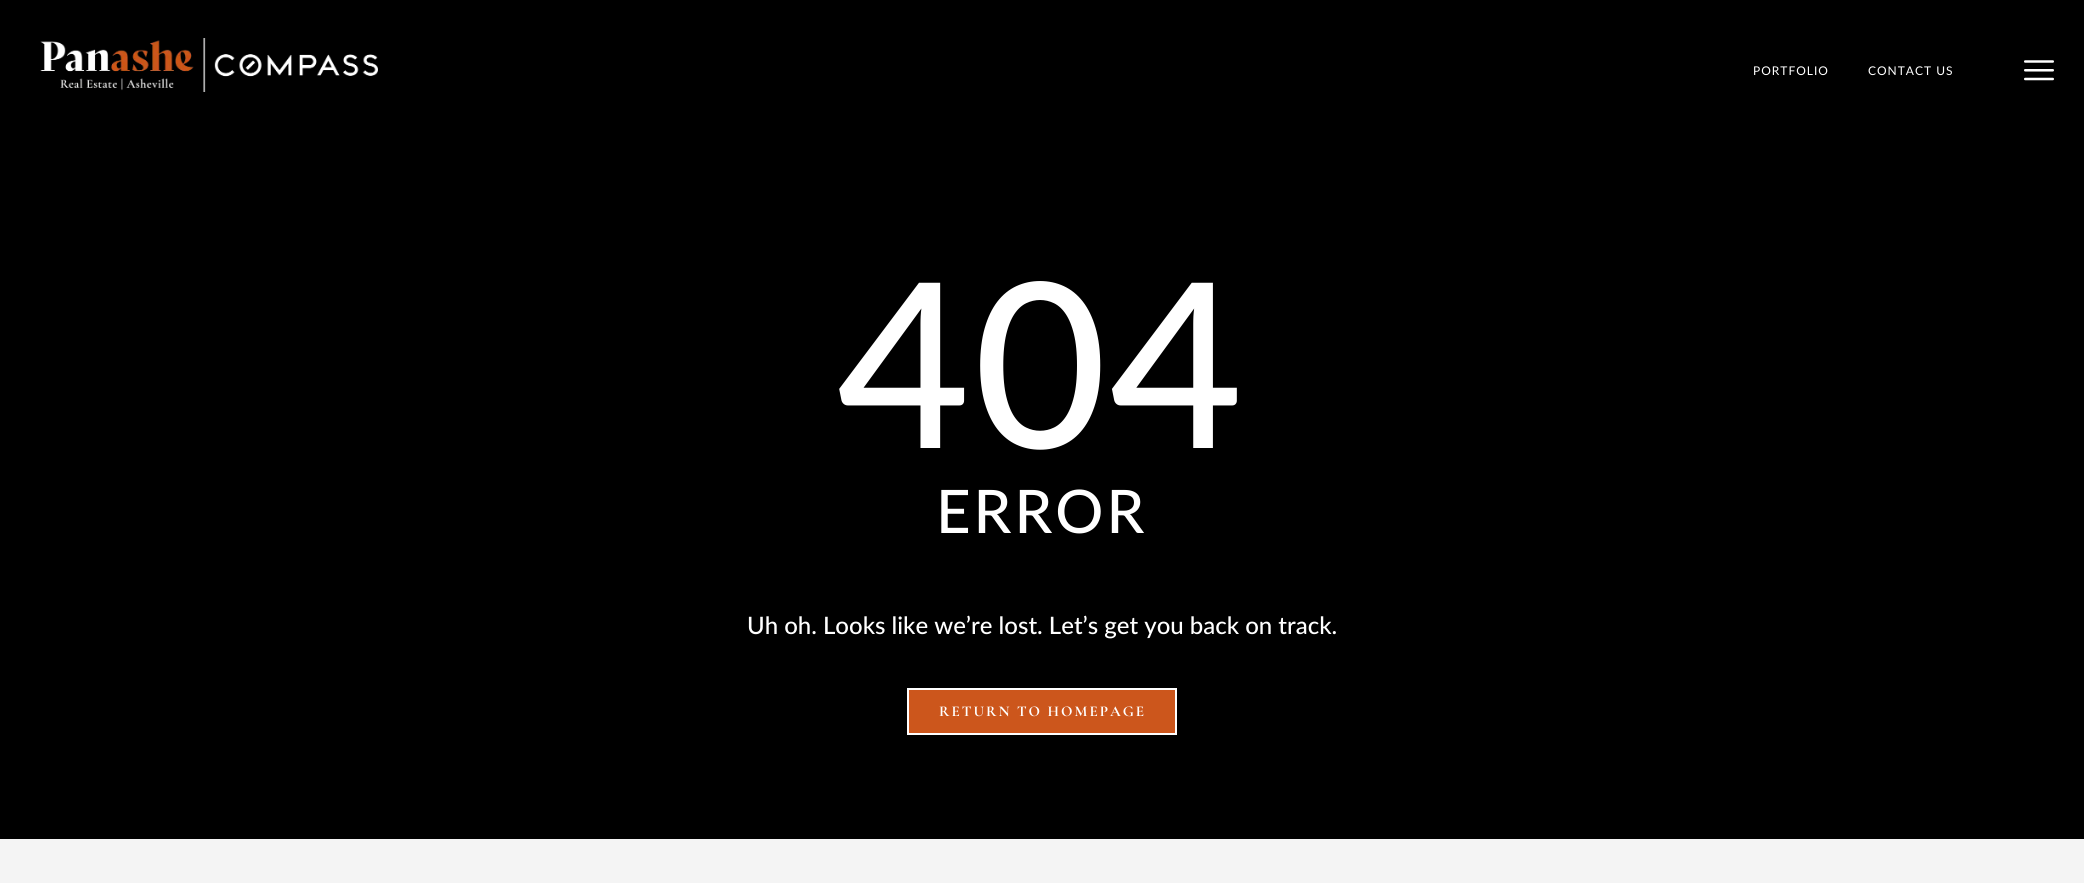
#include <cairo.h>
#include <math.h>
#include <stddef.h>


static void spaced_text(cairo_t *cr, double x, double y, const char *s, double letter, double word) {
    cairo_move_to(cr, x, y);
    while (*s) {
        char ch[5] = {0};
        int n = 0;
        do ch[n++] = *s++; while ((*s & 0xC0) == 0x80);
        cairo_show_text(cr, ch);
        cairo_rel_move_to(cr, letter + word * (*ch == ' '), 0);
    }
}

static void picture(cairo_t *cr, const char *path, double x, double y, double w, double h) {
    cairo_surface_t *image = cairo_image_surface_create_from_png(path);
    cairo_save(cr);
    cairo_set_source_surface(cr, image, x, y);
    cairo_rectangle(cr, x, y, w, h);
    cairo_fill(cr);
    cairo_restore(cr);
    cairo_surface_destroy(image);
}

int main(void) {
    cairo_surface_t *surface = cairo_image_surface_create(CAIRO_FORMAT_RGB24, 2084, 883);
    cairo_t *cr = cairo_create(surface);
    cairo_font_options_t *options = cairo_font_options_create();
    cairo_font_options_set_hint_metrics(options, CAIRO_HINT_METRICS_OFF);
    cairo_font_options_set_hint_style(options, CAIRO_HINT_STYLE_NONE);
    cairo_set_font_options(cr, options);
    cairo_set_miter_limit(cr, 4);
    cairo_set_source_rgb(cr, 0.957, 0.957, 0.957);
    cairo_paint(cr);
    cairo_set_source_rgb(cr, 0, 0, 0);
    cairo_rectangle(cr, 0, 0, 2084, 839);
    cairo_fill(cr);
    picture(cr, "img1.png", 40, 38, 338, 54);
    cairo_select_font_face(cr, "Lato", CAIRO_FONT_SLANT_NORMAL, CAIRO_FONT_WEIGHT_NORMAL);
    cairo_set_font_size(cr, 12);
    cairo_set_source_rgb(cr, 1, 1, 1);
    spaced_text(cr, 1753, 75, "PORTFOLIO", 1, 0);
    spaced_text(cr, 1868, 75, "CONTACT US", 1, 0);
    picture(cr, "img2.png", 2024, 60, 30, 21);
    cairo_select_font_face(cr, "Lato Medium", CAIRO_FONT_SLANT_NORMAL, CAIRO_FONT_WEIGHT_NORMAL);
    cairo_set_font_size(cr, 230);
    spaced_text(cr, 837, 448, "404", 3, 0);
    cairo_set_font_size(cr, 60);
    spaced_text(cr, 936, 533, "ERROR", 3, 0);
    cairo_set_font_size(cr, 24);
    cairo_move_to(cr, 747, 634);
    cairo_show_text(cr, "Uh oh. Looks like we’re lost. Let’s get you back on track.");
    cairo_set_source_rgb(cr, 0.8, 0.337, 0.11);
    cairo_rectangle(cr, 908, 689, 268, 45);
    cairo_fill_preserve(cr);
    cairo_set_source_rgb(cr, 1, 1, 1);
    cairo_stroke(cr);
    cairo_select_font_face(cr, "Cormorant Garamond", CAIRO_FONT_SLANT_NORMAL, CAIRO_FONT_WEIGHT_BOLD);
    cairo_set_font_size(cr, 15);
    spaced_text(cr, 939, 716, "RETURN TO HOMEPAGE", 2, 0);
    cairo_surface_write_to_png(surface, "page.png");
    cairo_font_options_destroy(options);
    cairo_destroy(cr);
    cairo_surface_destroy(surface);
    return 0;
}
